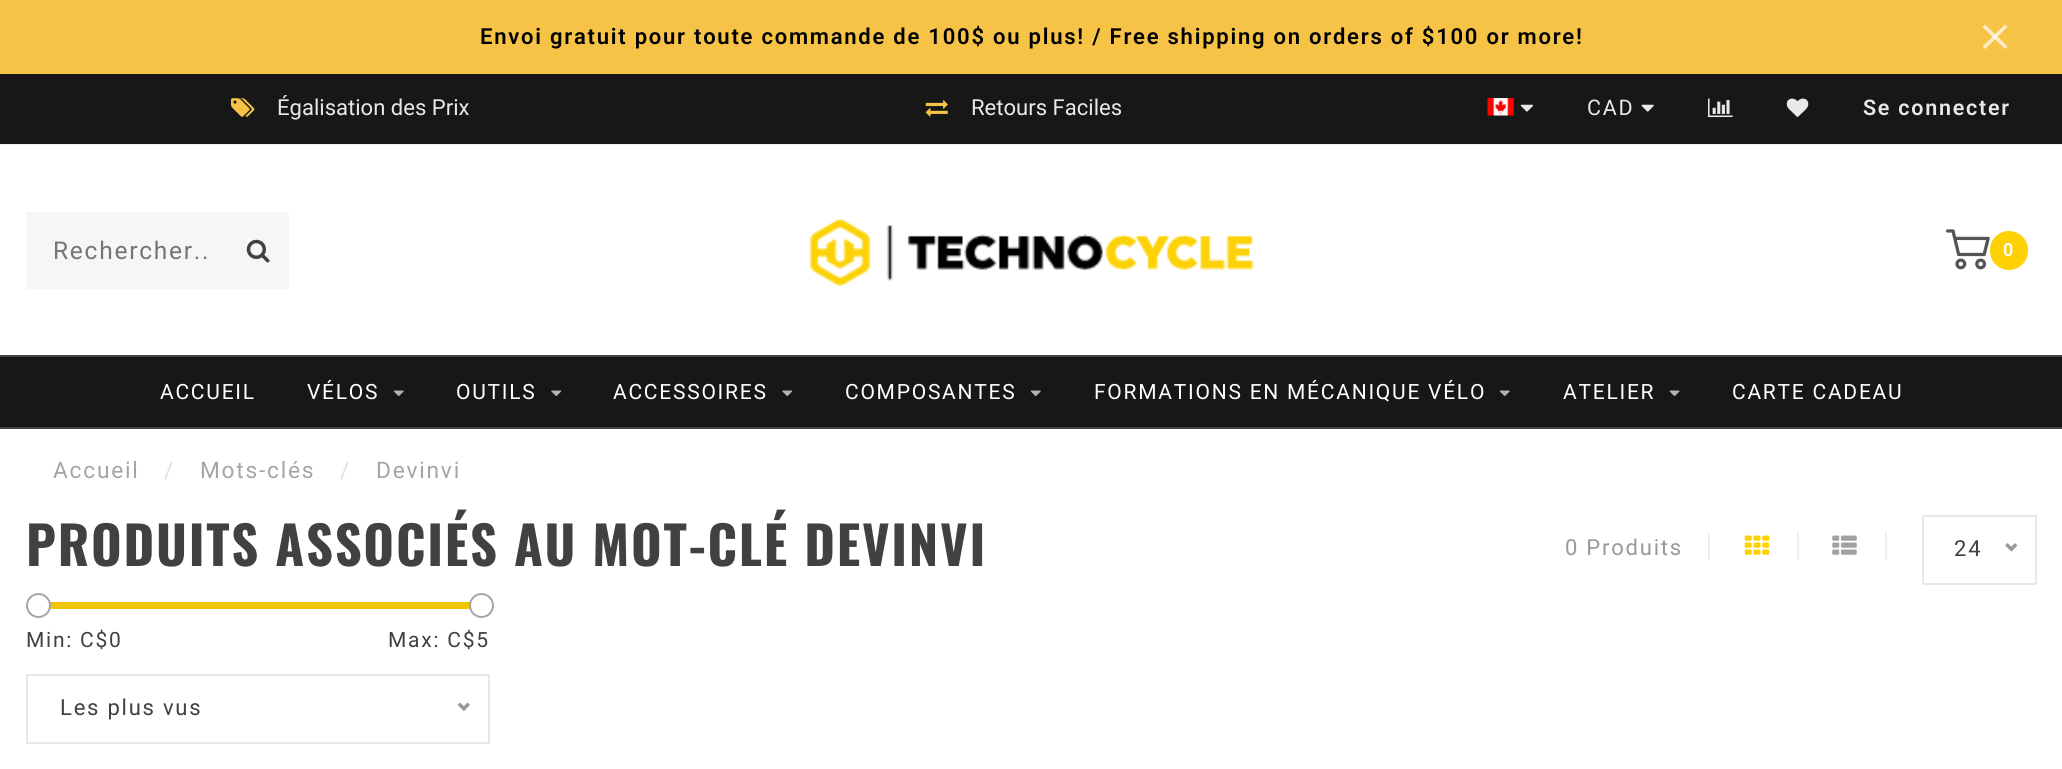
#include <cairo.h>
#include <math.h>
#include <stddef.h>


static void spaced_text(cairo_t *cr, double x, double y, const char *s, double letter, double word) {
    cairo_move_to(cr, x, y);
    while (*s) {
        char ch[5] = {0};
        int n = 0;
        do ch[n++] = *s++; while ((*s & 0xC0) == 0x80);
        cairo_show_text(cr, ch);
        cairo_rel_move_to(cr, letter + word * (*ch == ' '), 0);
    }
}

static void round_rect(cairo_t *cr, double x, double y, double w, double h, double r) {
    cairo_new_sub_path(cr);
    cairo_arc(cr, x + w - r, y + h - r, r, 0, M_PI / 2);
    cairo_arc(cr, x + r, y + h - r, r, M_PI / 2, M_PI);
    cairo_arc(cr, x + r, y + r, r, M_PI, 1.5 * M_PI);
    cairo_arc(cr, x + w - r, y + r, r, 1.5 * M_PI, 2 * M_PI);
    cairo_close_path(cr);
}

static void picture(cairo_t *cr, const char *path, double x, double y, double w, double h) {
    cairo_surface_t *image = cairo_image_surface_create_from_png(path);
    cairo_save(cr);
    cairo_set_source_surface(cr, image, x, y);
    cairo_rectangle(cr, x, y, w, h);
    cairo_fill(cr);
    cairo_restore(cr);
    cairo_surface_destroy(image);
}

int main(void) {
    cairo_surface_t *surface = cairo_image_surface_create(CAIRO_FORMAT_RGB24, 2062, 769);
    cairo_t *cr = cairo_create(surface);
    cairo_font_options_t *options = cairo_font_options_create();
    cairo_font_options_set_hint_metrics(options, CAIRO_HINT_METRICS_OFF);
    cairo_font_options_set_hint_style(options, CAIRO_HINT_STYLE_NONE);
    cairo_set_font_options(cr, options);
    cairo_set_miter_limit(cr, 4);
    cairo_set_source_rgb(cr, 1, 1, 1);
    cairo_paint(cr);
    cairo_set_source_rgb(cr, 0.965, 0.765, 0.278);
    cairo_rectangle(cr, 0, 0, 2062, 74);
    cairo_fill(cr);
    cairo_select_font_face(cr, "Roboto SemiBold", CAIRO_FONT_SLANT_NORMAL, CAIRO_FONT_WEIGHT_NORMAL);
    cairo_set_font_size(cr, 22.05);
    cairo_set_source_rgb(cr, 0, 0, 0);
    spaced_text(cr, 480, 44, "Envoi gratuit pour toute commande de 100$ ou plus! / Free shipping on orders of $100 or more!", 1.75, 0);
    cairo_set_source_rgb(cr, 0.988, 0.929, 0.784);
    cairo_new_path(cr);
    cairo_move_to(cr, 1985, 24.5);
    cairo_line_to(cr, 2007.5, 46.5);
    cairo_line_to(cr, 2005, 49);
    cairo_line_to(cr, 1982.5, 27);
    cairo_close_path(cr);
    cairo_fill(cr);
    cairo_set_source_rgba(cr, 1, 1, 1, 0.7);
    cairo_new_path(cr);
    cairo_move_to(cr, 1982.5, 46.5);
    cairo_line_to(cr, 2005, 24.5);
    cairo_line_to(cr, 2007.5, 27);
    cairo_line_to(cr, 1985, 49);
    cairo_close_path(cr);
    cairo_fill(cr);
    cairo_set_source_rgb(cr, 0.09, 0.09, 0.09);
    cairo_rectangle(cr, 0, 74, 2062, 70);
    cairo_fill(cr);
    cairo_set_source_rgb(cr, 0.933, 0.933, 0.933);
    cairo_rectangle(cr, 0, 144, 2062, 1);
    cairo_fill(cr);
    picture(cr, "img1.png", 231, 98, 24, 19);
    cairo_select_font_face(cr, "Roboto", CAIRO_FONT_SLANT_NORMAL, CAIRO_FONT_WEIGHT_NORMAL);
    cairo_set_source_rgb(cr, 0.906, 0.914, 0.918);
    cairo_move_to(cr, 277, 115);
    cairo_show_text(cr, "Égalisation des Prix");
    picture(cr, "img2.png", 925, 100, 23, 17);
    cairo_move_to(cr, 971, 115);
    cairo_show_text(cr, "Retours Faciles");
    picture(cr, "img3.png", 1487, 98, 27, 18);
    picture(cr, "img4.png", 1520, 104, 13, 8);
    cairo_set_font_size(cr, 21.5);
    spaced_text(cr, 1587, 115, "CAD", 1.75, 0);
    picture(cr, "img5.png", 1641, 104, 13, 8);
    picture(cr, "img6.png", 1708, 98, 25, 20);
    picture(cr, "img7.png", 1786, 98, 23, 19);
    cairo_select_font_face(cr, "Roboto SemiBold", CAIRO_FONT_SLANT_NORMAL, CAIRO_FONT_WEIGHT_NORMAL);
    spaced_text(cr, 1863, 115, "Se connecter", 1.75, 0);
    cairo_set_source_rgb(cr, 0.961, 0.961, 0.961);
    cairo_rectangle(cr, 26, 212, 263, 77);
    cairo_fill(cr);
    cairo_select_font_face(cr, "Roboto", CAIRO_FONT_SLANT_NORMAL, CAIRO_FONT_WEIGHT_NORMAL);
    cairo_set_font_size(cr, 24.5);
    cairo_set_source_rgb(cr, 0.459, 0.459, 0.459);
    spaced_text(cr, 53, 259, "Rechercher..", 1.75, 0);
    picture(cr, "img8.png", 246, 239, 24, 24);
    picture(cr, "img9.png", 809, 218, 445, 68);
    picture(cr, "img10.png", 1946, 229, 44, 41);
    cairo_set_source_rgb(cr, 0.992, 0.82, 0.016);
    round_rect(cr, 1990, 231, 38, 39, 19);
    cairo_fill(cr);
    cairo_select_font_face(cr, "Roboto SemiBold", CAIRO_FONT_SLANT_NORMAL, CAIRO_FONT_WEIGHT_NORMAL);
    cairo_set_font_size(cr, 18);
    cairo_set_source_rgb(cr, 1, 1, 1);
    spaced_text(cr, 2003, 256, "0", 1.75, 0);
    cairo_set_source_rgb(cr, 0.09, 0.09, 0.09);
    cairo_rectangle(cr, 0, 357, 2062, 70);
    cairo_fill(cr);
    cairo_set_source_rgb(cr, 0.267, 0.267, 0.267);
    cairo_rectangle(cr, 0, 355, 2062, 2);
    cairo_fill(cr);
    cairo_rectangle(cr, 0, 427, 2062, 2);
    cairo_fill(cr);
    cairo_select_font_face(cr, "Roboto", CAIRO_FONT_SLANT_NORMAL, CAIRO_FONT_WEIGHT_NORMAL);
    cairo_set_font_size(cr, 21);
    cairo_set_source_rgb(cr, 1, 1, 1);
    spaced_text(cr, 160, 399, "ACCUEIL", 1.75, 0);
    spaced_text(cr, 307, 399, "VÉLOS", 1.75, 0);
    picture(cr, "img11.png", 393, 390, 11, 7);
    spaced_text(cr, 456, 399, "OUTILS", 1.75, 0);
    picture(cr, "img12.png", 551, 390, 11, 7);
    spaced_text(cr, 613, 399, "ACCESSOIRES", 1.75, 0);
    picture(cr, "img12.png", 782, 390, 11, 7);
    spaced_text(cr, 845, 399, "COMPOSANTES", 1.75, 0);
    picture(cr, "img11.png", 1030, 390, 11, 7);
    spaced_text(cr, 1094, 399, "FORMATIONS EN MÉCANIQUE VÉLO", 1.75, 0);
    picture(cr, "img11.png", 1499, 390, 11, 7);
    spaced_text(cr, 1563, 399, "ATELIER", 1.75, 0);
    picture(cr, "img13.png", 1669, 390, 11, 7);
    spaced_text(cr, 1732, 399, "CARTE CADEAU", 1.75, 0);
    cairo_set_font_size(cr, 22.75);
    cairo_set_source_rgb(cr, 0.647, 0.647, 0.647);
    spaced_text(cr, 53, 478, "Accueil", 1.75, 0);
    cairo_set_source_rgb(cr, 0.867, 0.867, 0.867);
    spaced_text(cr, 164, 478, "/", 1.75, 0);
    cairo_set_source_rgb(cr, 0.647, 0.647, 0.647);
    spaced_text(cr, 200, 478, "Mots-clés", 1.75, 0);
    cairo_set_source_rgb(cr, 0.867, 0.867, 0.867);
    spaced_text(cr, 340, 478, "/", 1.75, 0);
    cairo_set_source_rgb(cr, 0.647, 0.647, 0.647);
    spaced_text(cr, 376, 478, "Devinvi", 1.75, 0);
    cairo_select_font_face(cr, "Oswald", CAIRO_FONT_SLANT_NORMAL, CAIRO_FONT_WEIGHT_BOLD);
    cairo_set_font_size(cr, 52.5);
    cairo_set_source_rgb(cr, 0.255, 0.255, 0.255);
    spaced_text(cr, 26, 566, "PRODUITS ASSOCIÉS AU MOT-CLÉ DEVINVI", 1.75, 0);
    cairo_select_font_face(cr, "Roboto", CAIRO_FONT_SLANT_NORMAL, CAIRO_FONT_WEIGHT_NORMAL);
    cairo_set_font_size(cr, 22.05);
    cairo_set_source_rgb(cr, 0.6, 0.6, 0.6);
    spaced_text(cr, 1565, 555, "0 Produits", 1.75, 0);
    cairo_set_source_rgb(cr, 0.933, 0.933, 0.933);
    cairo_rectangle(cr, 1708, 534, 2, 26);
    cairo_fill(cr);
    cairo_rectangle(cr, 1797, 532, 2, 28);
    cairo_fill(cr);
    picture(cr, "img14.png", 1744, 535, 26, 20);
    cairo_rectangle(cr, 1885, 532, 2, 28);
    cairo_fill(cr);
    picture(cr, "img15.png", 1832, 535, 25, 20);
    cairo_rectangle(cr, 1923, 516, 113, 68);
    cairo_set_source_rgb(cr, 0.91, 0.91, 0.91);
    cairo_stroke(cr);
    cairo_set_source_rgb(cr, 0.255, 0.255, 0.255);
    spaced_text(cr, 1954, 556, "24", 1.75, 0);
    cairo_set_source_rgb(cr, 0.6, 0.6, 0.6);
    cairo_new_path(cr);
    cairo_move_to(cr, 2015, 543);
    cairo_line_to(cr, 2017.5, 545.5);
    cairo_line_to(cr, 2011.5, 551.5);
    cairo_line_to(cr, 2009, 549);
    cairo_close_path(cr);
    cairo_fill(cr);
    cairo_new_path(cr);
    cairo_move_to(cr, 2007.5, 543);
    cairo_line_to(cr, 2013.5, 549);
    cairo_line_to(cr, 2011.5, 551.5);
    cairo_line_to(cr, 2005, 545.5);
    cairo_close_path(cr);
    cairo_fill(cr);
    cairo_set_source_rgb(cr, 0.941, 0.776, 0.012);
    cairo_rectangle(cr, 44, 602, 426, 7);
    cairo_fill(cr);
    cairo_set_source_rgb(cr, 1, 1, 1);
    cairo_arc(cr, 38.5, 605.5, 11.5, 0, 2 * M_PI);
    cairo_fill_preserve(cr);
    cairo_set_source_rgb(cr, 0.647, 0.647, 0.647);
    cairo_stroke(cr);
    cairo_set_source_rgb(cr, 1, 1, 1);
    cairo_arc(cr, 481.5, 605.5, 11.5, 0, 2 * M_PI);
    cairo_fill_preserve(cr);
    cairo_set_source_rgb(cr, 0.647, 0.647, 0.647);
    cairo_stroke(cr);
    cairo_set_font_size(cr, 21);
    cairo_set_source_rgb(cr, 0.255, 0.255, 0.255);
    spaced_text(cr, 26, 647, "Min: C$0", 1.75, 0);
    spaced_text(cr, 388, 647, "Max: C$5", 1.75, 0);
    cairo_rectangle(cr, 27, 675, 462, 68);
    cairo_set_source_rgb(cr, 0.91, 0.91, 0.91);
    cairo_stroke(cr);
    cairo_set_font_size(cr, 22.05);
    cairo_set_source_rgb(cr, 0.255, 0.255, 0.255);
    spaced_text(cr, 60, 715, "Les plus vus", 1.75, 0);
    cairo_set_source_rgb(cr, 0.6, 0.6, 0.6);
    cairo_new_path(cr);
    cairo_move_to(cr, 467.5, 702.5);
    cairo_line_to(cr, 470, 705);
    cairo_line_to(cr, 464, 711);
    cairo_line_to(cr, 461.5, 708.5);
    cairo_close_path(cr);
    cairo_fill(cr);
    cairo_new_path(cr);
    cairo_move_to(cr, 460, 702.5);
    cairo_line_to(cr, 466.5, 708.5);
    cairo_line_to(cr, 464, 711);
    cairo_line_to(cr, 457.5, 705);
    cairo_close_path(cr);
    cairo_fill(cr);
    cairo_surface_write_to_png(surface, "page.png");
    cairo_font_options_destroy(options);
    cairo_destroy(cr);
    cairo_surface_destroy(surface);
    return 0;
}
